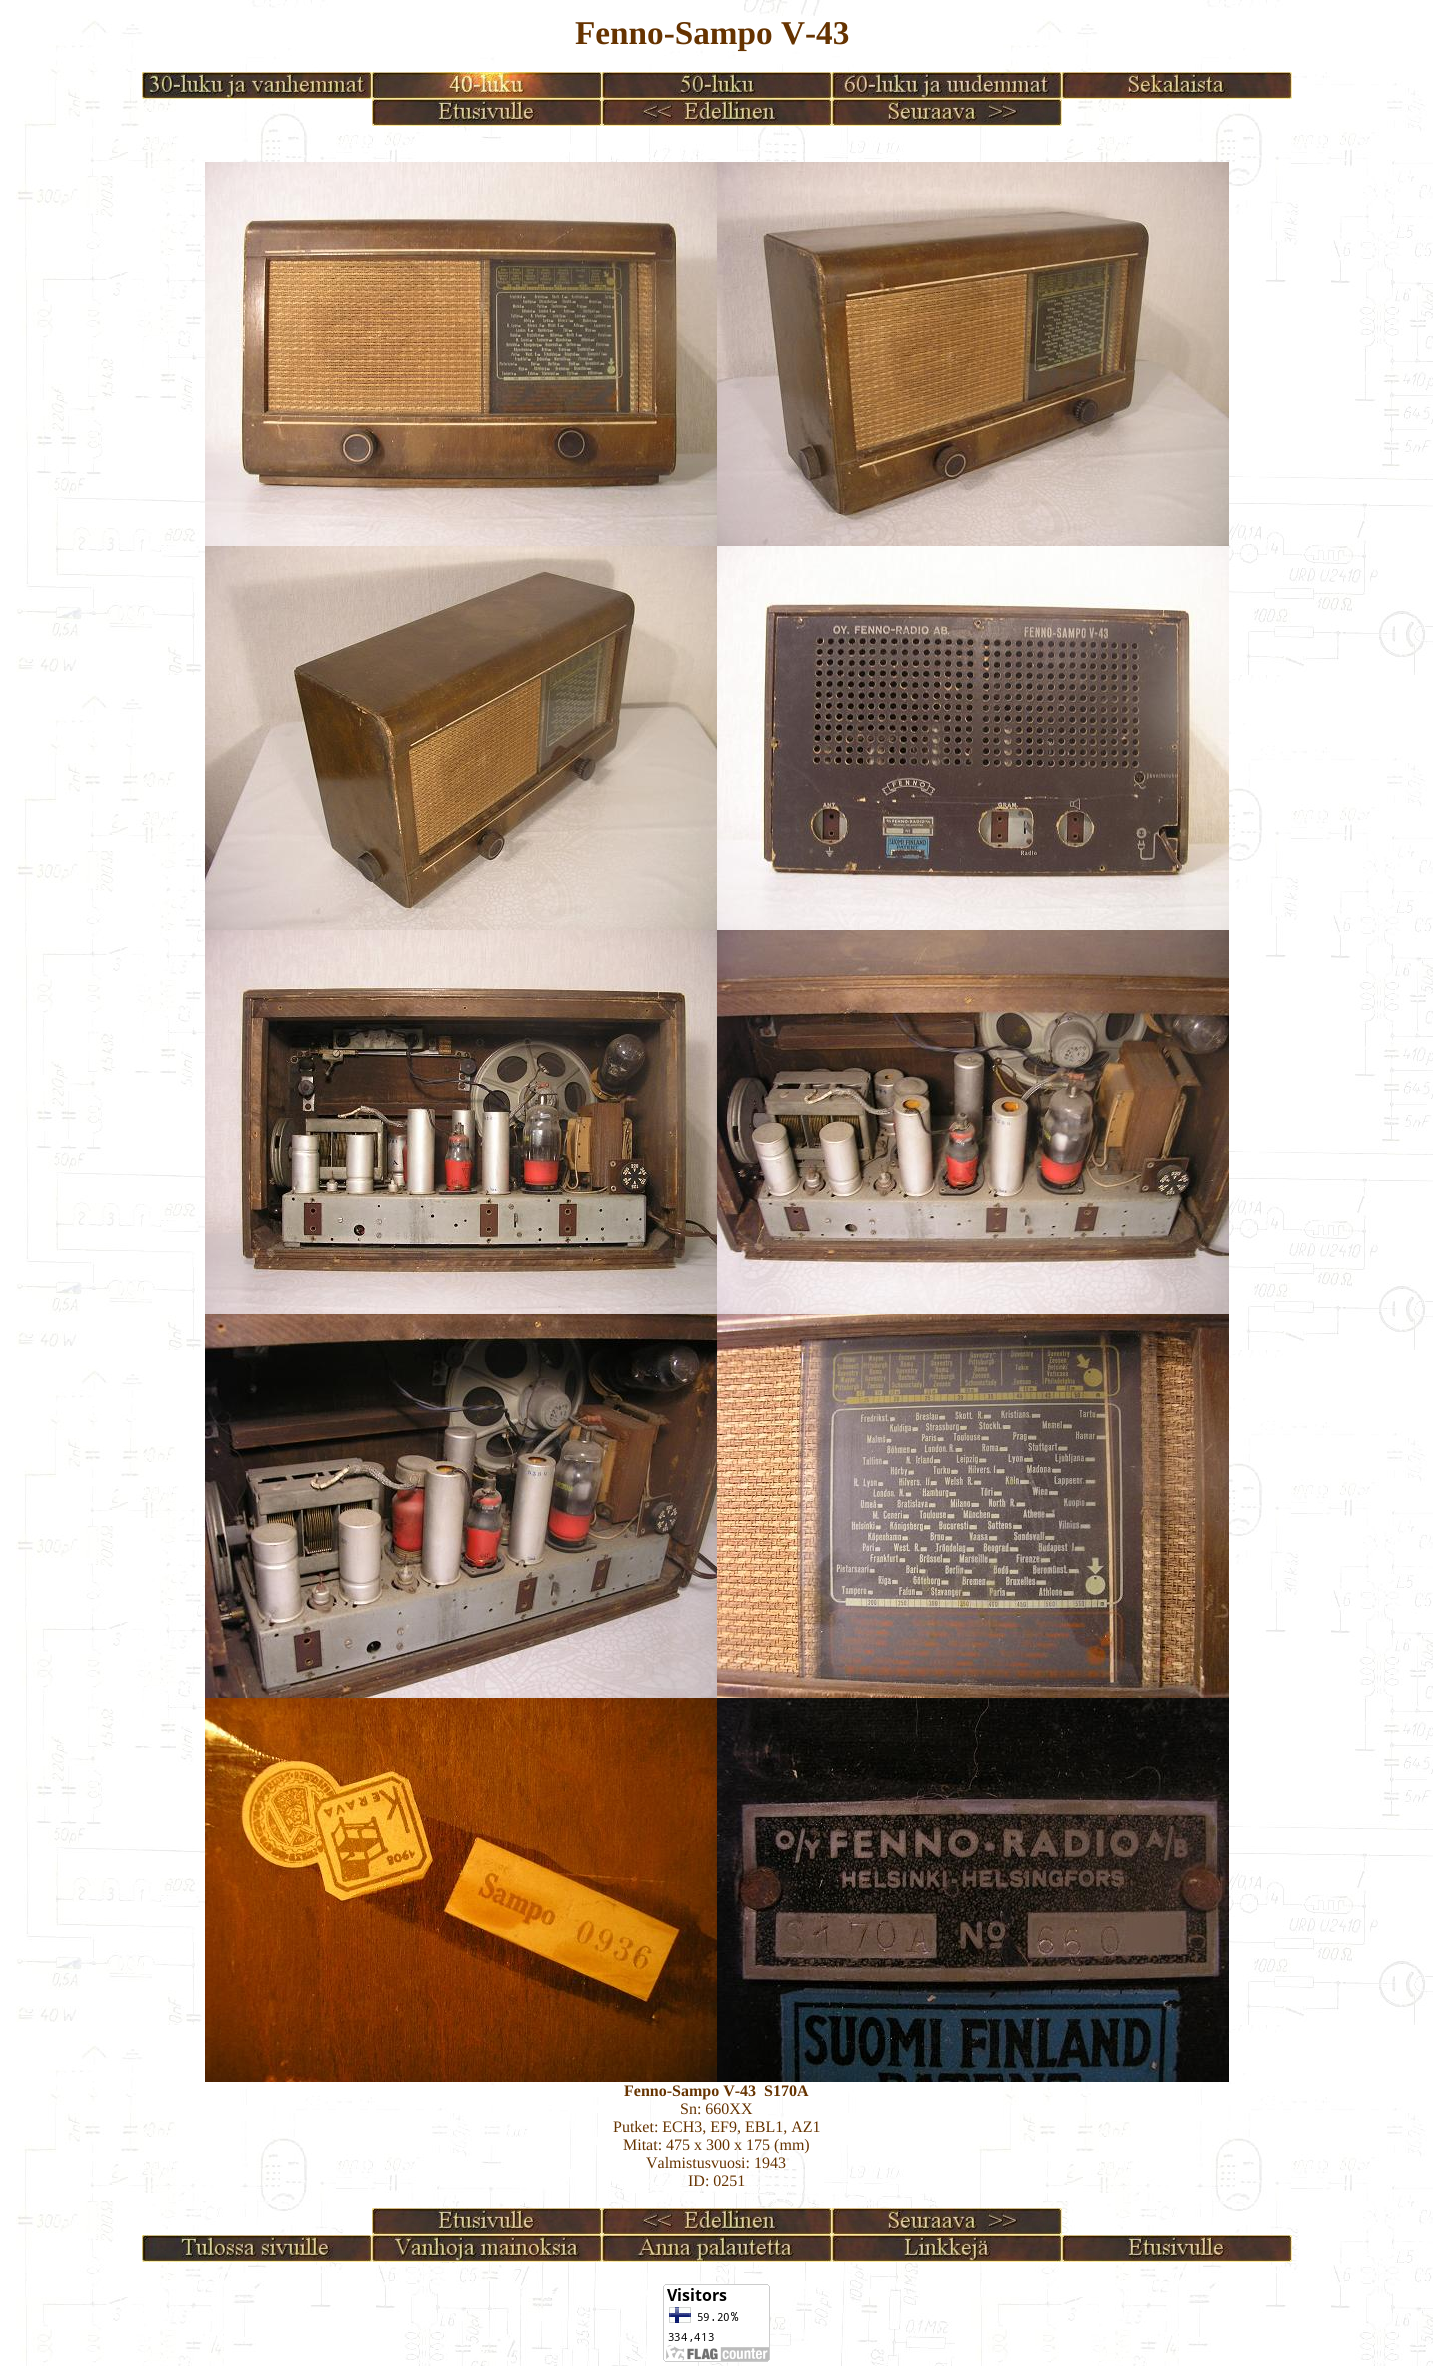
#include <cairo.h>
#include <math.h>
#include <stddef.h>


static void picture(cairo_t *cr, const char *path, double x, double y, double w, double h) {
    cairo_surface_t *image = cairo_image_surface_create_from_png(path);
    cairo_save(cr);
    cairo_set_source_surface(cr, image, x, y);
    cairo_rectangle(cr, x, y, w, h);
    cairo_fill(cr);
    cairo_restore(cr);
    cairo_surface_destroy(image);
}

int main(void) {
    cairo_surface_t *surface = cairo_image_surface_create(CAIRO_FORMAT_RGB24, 1433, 2366);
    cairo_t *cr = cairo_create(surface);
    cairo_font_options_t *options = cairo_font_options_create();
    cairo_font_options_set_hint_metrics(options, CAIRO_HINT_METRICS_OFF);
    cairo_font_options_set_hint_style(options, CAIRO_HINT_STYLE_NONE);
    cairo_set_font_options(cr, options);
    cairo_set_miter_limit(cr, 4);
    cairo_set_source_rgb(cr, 1, 1, 1);
    cairo_paint(cr);
    picture(cr, "img1.png", 16, 0, 1417, 2366);
    cairo_select_font_face(cr, "Liberation Serif", CAIRO_FONT_SLANT_NORMAL, CAIRO_FONT_WEIGHT_BOLD);
    cairo_set_font_size(cr, 33.25);
    cairo_set_source_rgb(cr, 0.4, 0.2, 0);
    cairo_move_to(cr, 575, 44);
    cairo_show_text(cr, "Fenno-Sampo V-43");
    picture(cr, "img2.png", 142, 72, 230, 27);
    picture(cr, "img3.png", 372, 72, 230, 27);
    picture(cr, "img4.png", 602, 72, 230, 27);
    picture(cr, "img5.png", 832, 72, 230, 27);
    picture(cr, "img6.png", 1062, 72, 230, 27);
    picture(cr, "img7.png", 372, 99, 230, 27);
    picture(cr, "img8.png", 602, 99, 230, 27);
    picture(cr, "img9.png", 832, 99, 230, 27);
    picture(cr, "img10.png", 205, 162, 512, 384);
    picture(cr, "img11.png", 717, 162, 512, 384);
    picture(cr, "img12.png", 205, 546, 512, 384);
    picture(cr, "img13.png", 717, 546, 512, 384);
    picture(cr, "img14.png", 205, 930, 512, 384);
    picture(cr, "img15.png", 717, 930, 512, 384);
    picture(cr, "img16.png", 205, 1314, 512, 384);
    picture(cr, "img17.png", 717, 1314, 512, 384);
    picture(cr, "img18.png", 205, 1698, 512, 384);
    picture(cr, "img19.png", 717, 1698, 512, 384);
    cairo_set_font_size(cr, 16);
    cairo_move_to(cr, 624, 2096);
    cairo_show_text(cr, "Fenno-Sampo V-43  S170A");
    cairo_select_font_face(cr, "Liberation Serif", CAIRO_FONT_SLANT_NORMAL, CAIRO_FONT_WEIGHT_NORMAL);
    cairo_move_to(cr, 680, 2114);
    cairo_show_text(cr, "Sn: 660XX");
    cairo_move_to(cr, 613, 2132);
    cairo_show_text(cr, "Putket: ECH3, EF9, EBL1, AZ1");
    cairo_move_to(cr, 623, 2150);
    cairo_show_text(cr, "Mitat: 475 x 300 x 175 (mm)");
    cairo_move_to(cr, 646, 2168);
    cairo_show_text(cr, "Valmistusvuosi: 1943");
    cairo_move_to(cr, 688, 2186);
    cairo_show_text(cr, "ID: 0251");
    picture(cr, "img7.png", 372, 2208, 230, 27);
    picture(cr, "img8.png", 602, 2208, 230, 27);
    picture(cr, "img9.png", 832, 2208, 230, 27);
    picture(cr, "img20.png", 142, 2235, 230, 27);
    picture(cr, "img21.png", 372, 2235, 230, 27);
    picture(cr, "img22.png", 602, 2235, 230, 27);
    picture(cr, "img23.png", 832, 2235, 230, 27);
    picture(cr, "img7.png", 1062, 2235, 230, 27);
    picture(cr, "img24.png", 663, 2284, 107, 78);
    cairo_surface_write_to_png(surface, "page.png");
    cairo_font_options_destroy(options);
    cairo_destroy(cr);
    cairo_surface_destroy(surface);
    return 0;
}
